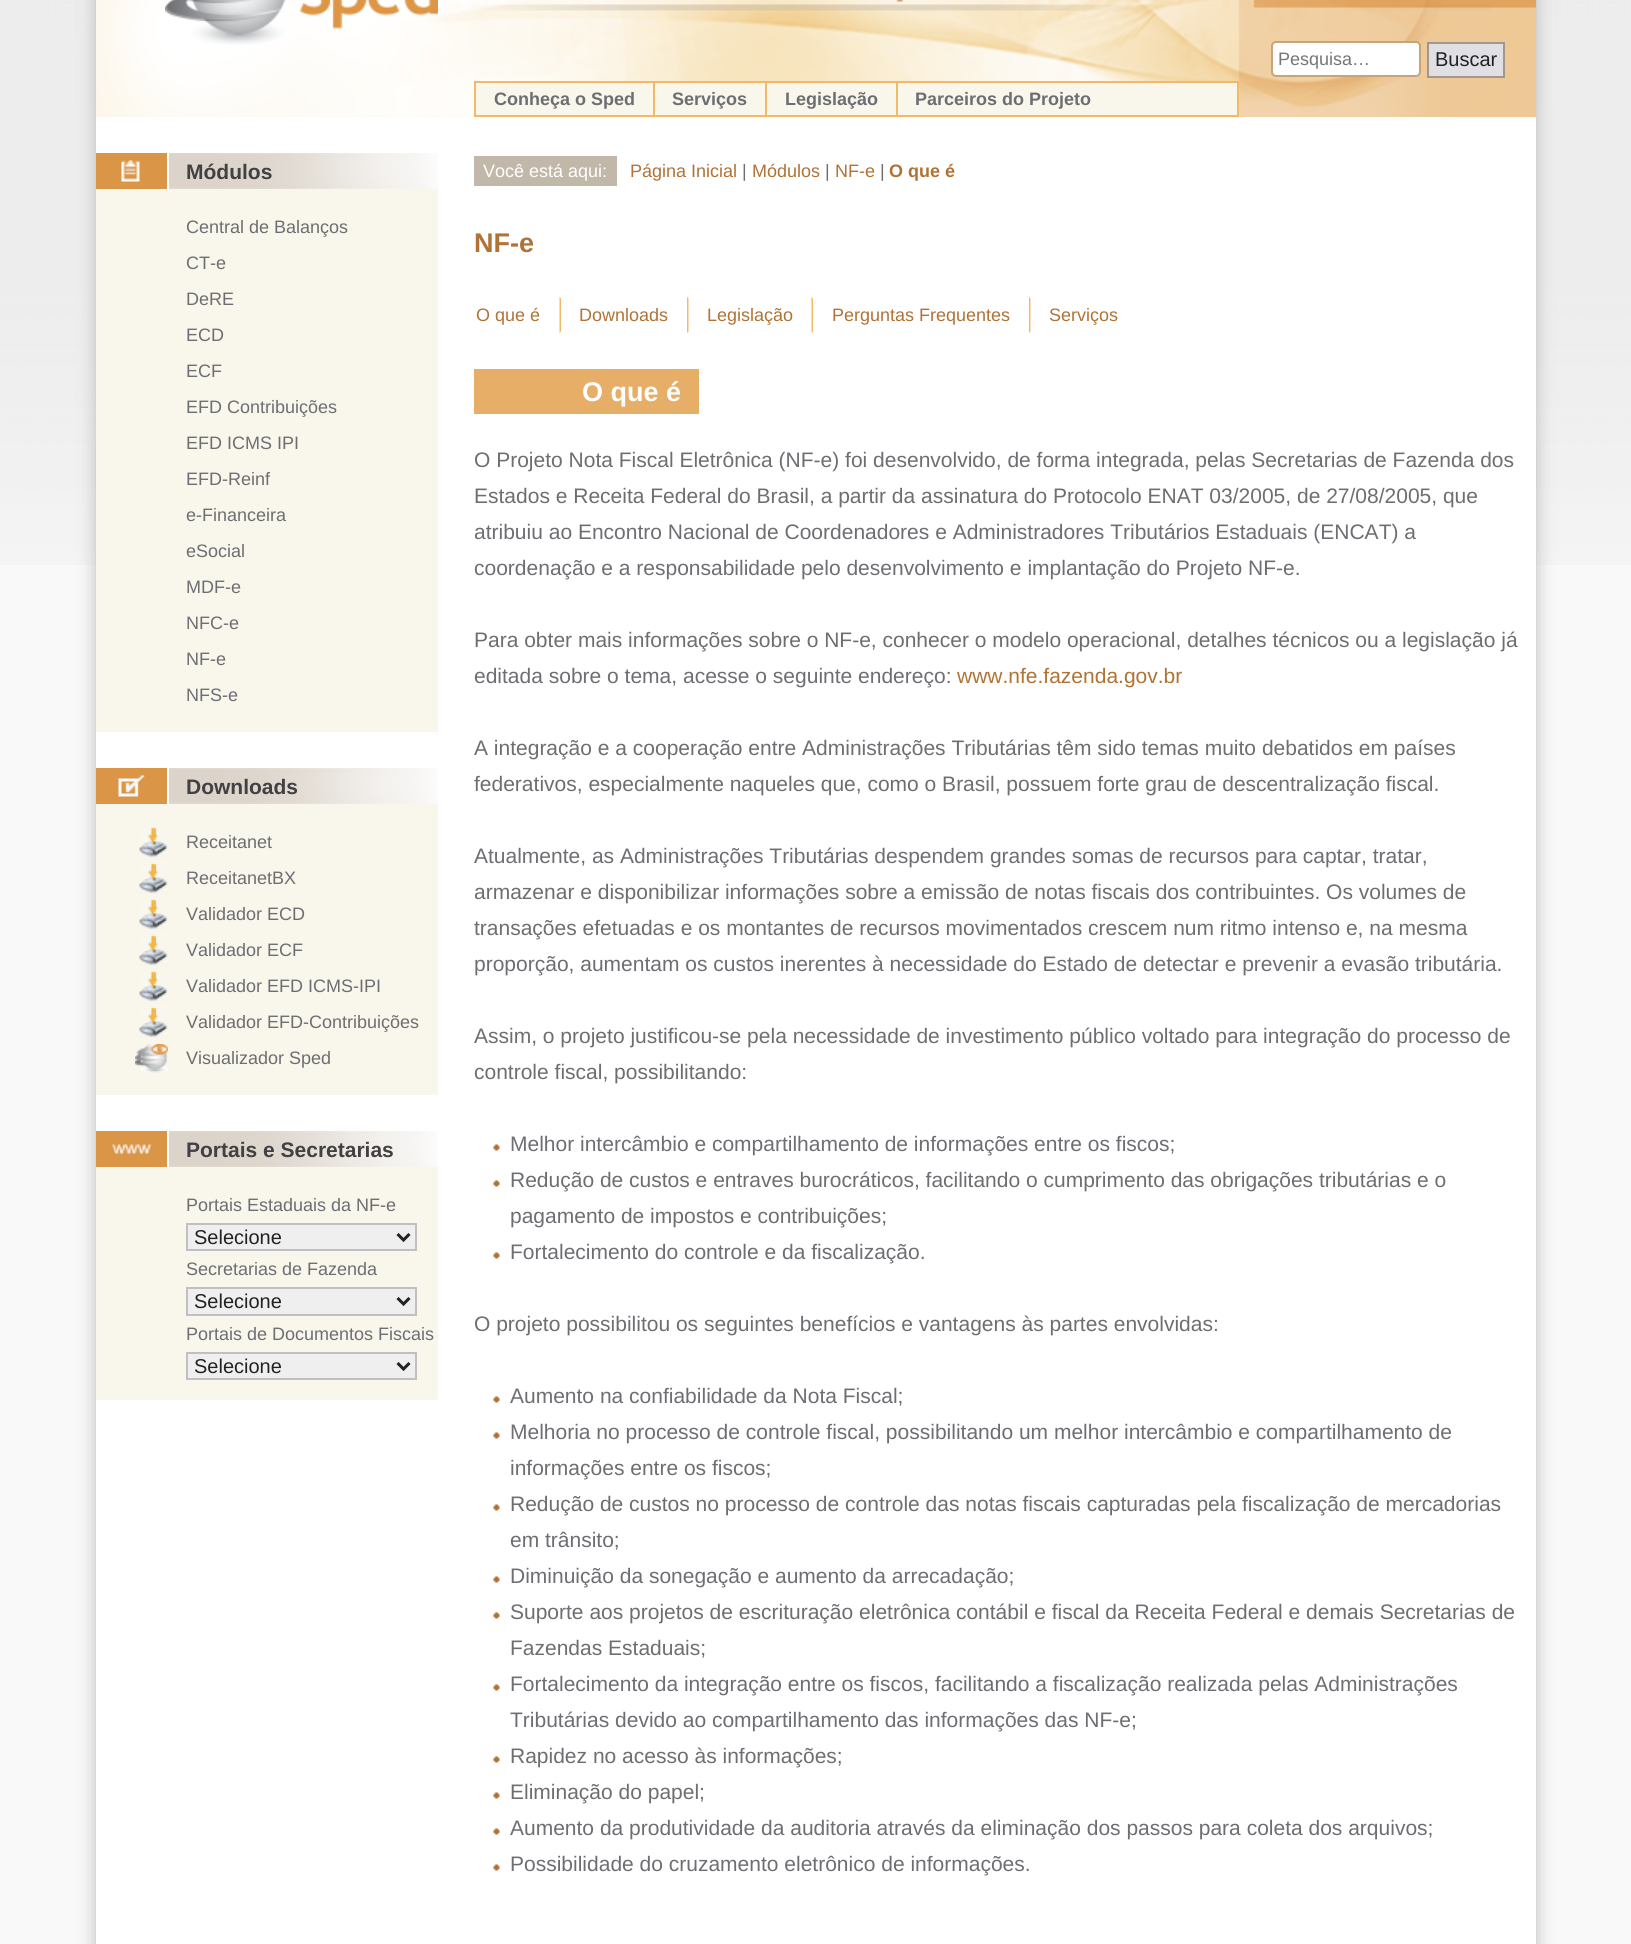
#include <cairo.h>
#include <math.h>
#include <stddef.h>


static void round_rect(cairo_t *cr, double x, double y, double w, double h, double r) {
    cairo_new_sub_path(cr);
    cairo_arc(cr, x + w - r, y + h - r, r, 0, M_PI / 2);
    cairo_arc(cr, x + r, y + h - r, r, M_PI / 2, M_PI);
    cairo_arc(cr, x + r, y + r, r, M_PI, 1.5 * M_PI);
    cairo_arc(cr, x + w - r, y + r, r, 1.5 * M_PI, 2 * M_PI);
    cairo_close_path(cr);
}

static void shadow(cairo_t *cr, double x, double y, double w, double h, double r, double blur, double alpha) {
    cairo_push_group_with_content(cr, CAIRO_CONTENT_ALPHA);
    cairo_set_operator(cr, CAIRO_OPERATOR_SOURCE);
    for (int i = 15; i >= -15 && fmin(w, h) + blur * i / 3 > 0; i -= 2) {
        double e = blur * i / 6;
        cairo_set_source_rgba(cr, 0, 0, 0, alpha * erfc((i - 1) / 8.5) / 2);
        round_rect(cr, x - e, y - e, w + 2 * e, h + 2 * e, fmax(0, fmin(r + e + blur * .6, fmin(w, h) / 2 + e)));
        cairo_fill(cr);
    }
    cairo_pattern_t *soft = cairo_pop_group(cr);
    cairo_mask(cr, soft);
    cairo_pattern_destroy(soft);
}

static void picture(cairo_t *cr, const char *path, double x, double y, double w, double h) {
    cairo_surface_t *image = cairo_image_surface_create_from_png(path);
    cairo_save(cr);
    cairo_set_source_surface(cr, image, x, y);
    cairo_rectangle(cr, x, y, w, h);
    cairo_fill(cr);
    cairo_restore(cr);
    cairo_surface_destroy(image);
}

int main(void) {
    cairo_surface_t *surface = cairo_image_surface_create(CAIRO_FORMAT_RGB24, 1631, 1944);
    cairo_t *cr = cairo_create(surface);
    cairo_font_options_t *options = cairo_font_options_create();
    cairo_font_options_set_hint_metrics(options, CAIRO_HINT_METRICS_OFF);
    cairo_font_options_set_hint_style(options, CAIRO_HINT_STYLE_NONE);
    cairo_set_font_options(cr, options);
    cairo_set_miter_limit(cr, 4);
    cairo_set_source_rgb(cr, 0.973, 0.973, 0.973);
    cairo_paint(cr);
    picture(cr, "img1.png", 0, 0, 1631, 565);
    cairo_set_source_rgb(cr, 0.729, 0.729, 0.729);
    shadow(cr, 96, -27, 1440, 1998, 0, 9, 1);
    picture(cr, "img2.png", 96, 0, 1440, 117);
    picture(cr, "img3.png", 165, 0, 273, 45);
    cairo_set_source_rgb(cr, 1, 1, 1);
    round_rect(cr, 1272, 42, 148, 34, 4);
    cairo_fill_preserve(cr);
    cairo_set_source_rgb(cr, 0.78, 0.647, 0.471);
    cairo_stroke(cr);
    cairo_select_font_face(cr, "Liberation Sans", CAIRO_FONT_SLANT_NORMAL, CAIRO_FONT_WEIGHT_NORMAL);
    cairo_set_font_size(cr, 18);
    cairo_set_source_rgb(cr, 0.459, 0.459, 0.459);
    cairo_move_to(cr, 1278, 65);
    cairo_show_text(cr, "Pesquisa…");
    cairo_set_source_rgb(cr, 0.878, 0.875, 0.89);
    cairo_rectangle(cr, 1428, 43, 76, 34);
    cairo_fill_preserve(cr);
    cairo_set_source_rgb(cr, 0.627, 0.596, 0.557);
    cairo_stroke(cr);
    cairo_set_font_size(cr, 20);
    cairo_set_source_rgb(cr, 0.133, 0.133, 0.133);
    cairo_move_to(cr, 1435, 66);
    cairo_show_text(cr, "Buscar");
    cairo_set_source_rgb(cr, 0.976, 0.961, 0.922);
    cairo_rectangle(cr, 475, 82, 763, 34);
    cairo_fill_preserve(cr);
    cairo_set_source_rgb(cr, 0.953, 0.725, 0.404);
    cairo_stroke(cr);
    cairo_rectangle(cr, 653, 83, 2, 33);
    cairo_fill(cr);
    cairo_select_font_face(cr, "Liberation Sans", CAIRO_FONT_SLANT_NORMAL, CAIRO_FONT_WEIGHT_BOLD);
    cairo_set_font_size(cr, 18);
    cairo_set_source_rgb(cr, 0.427, 0.431, 0.447);
    cairo_move_to(cr, 494, 105);
    cairo_show_text(cr, "Conheça o Sped");
    cairo_set_source_rgb(cr, 0.953, 0.725, 0.404);
    cairo_rectangle(cr, 765, 83, 2, 33);
    cairo_fill(cr);
    cairo_set_source_rgb(cr, 0.427, 0.431, 0.447);
    cairo_move_to(cr, 672, 105);
    cairo_show_text(cr, "Serviços");
    cairo_set_source_rgb(cr, 0.953, 0.725, 0.404);
    cairo_rectangle(cr, 896, 83, 2, 33);
    cairo_fill(cr);
    cairo_set_source_rgb(cr, 0.427, 0.431, 0.447);
    cairo_move_to(cr, 785, 105);
    cairo_show_text(cr, "Legislação");
    cairo_move_to(cr, 915, 105);
    cairo_show_text(cr, "Parceiros do Projeto");
    cairo_set_source_rgb(cr, 1, 1, 1);
    cairo_rectangle(cr, 96, 117, 1440, 1827);
    cairo_fill(cr);
    picture(cr, "img4.png", 169, 153, 269, 36);
    cairo_set_source_rgb(cr, 0.855, 0.584, 0.278);
    cairo_rectangle(cr, 96, 153, 71, 36);
    cairo_fill(cr);
    picture(cr, "img5.png", 121, 160, 19, 22);
    cairo_set_font_size(cr, 21);
    cairo_set_source_rgb(cr, 0.255, 0.251, 0.259);
    cairo_move_to(cr, 186, 179);
    cairo_show_text(cr, "Módulos");
    cairo_set_source_rgb(cr, 0.976, 0.961, 0.922);
    cairo_rectangle(cr, 96, 189, 342, 543);
    cairo_fill(cr);
    cairo_select_font_face(cr, "Liberation Sans", CAIRO_FONT_SLANT_NORMAL, CAIRO_FONT_WEIGHT_NORMAL);
    cairo_set_font_size(cr, 18);
    cairo_set_source_rgb(cr, 0.427, 0.431, 0.447);
    cairo_move_to(cr, 186, 233);
    cairo_show_text(cr, "Central de Balanços");
    cairo_move_to(cr, 186, 269);
    cairo_show_text(cr, "CT-e");
    cairo_move_to(cr, 186, 305);
    cairo_show_text(cr, "DeRE");
    cairo_move_to(cr, 186, 341);
    cairo_show_text(cr, "ECD");
    cairo_move_to(cr, 186, 377);
    cairo_show_text(cr, "ECF");
    cairo_move_to(cr, 186, 413);
    cairo_show_text(cr, "EFD Contribuições");
    cairo_move_to(cr, 186, 449);
    cairo_show_text(cr, "EFD ICMS IPI");
    cairo_move_to(cr, 186, 485);
    cairo_show_text(cr, "EFD-Reinf");
    cairo_move_to(cr, 186, 521);
    cairo_show_text(cr, "e-Financeira");
    cairo_move_to(cr, 186, 557);
    cairo_show_text(cr, "eSocial");
    cairo_move_to(cr, 186, 593);
    cairo_show_text(cr, "MDF-e");
    cairo_move_to(cr, 186, 629);
    cairo_show_text(cr, "NFC-e");
    cairo_move_to(cr, 186, 665);
    cairo_show_text(cr, "NF-e");
    cairo_move_to(cr, 186, 701);
    cairo_show_text(cr, "NFS-e");
    picture(cr, "img4.png", 169, 768, 269, 36);
    cairo_set_source_rgb(cr, 0.855, 0.584, 0.278);
    cairo_rectangle(cr, 96, 768, 71, 36);
    cairo_fill(cr);
    picture(cr, "img6.png", 118, 775, 27, 22);
    cairo_select_font_face(cr, "Liberation Sans", CAIRO_FONT_SLANT_NORMAL, CAIRO_FONT_WEIGHT_BOLD);
    cairo_set_font_size(cr, 21);
    cairo_set_source_rgb(cr, 0.255, 0.251, 0.259);
    cairo_move_to(cr, 186, 794);
    cairo_show_text(cr, "Downloads");
    cairo_set_source_rgb(cr, 0.976, 0.961, 0.922);
    cairo_rectangle(cr, 96, 804, 342, 291);
    cairo_fill(cr);
    picture(cr, "img7.png", 139, 827, 29, 31);
    cairo_select_font_face(cr, "Liberation Sans", CAIRO_FONT_SLANT_NORMAL, CAIRO_FONT_WEIGHT_NORMAL);
    cairo_set_font_size(cr, 18);
    cairo_set_source_rgb(cr, 0.427, 0.431, 0.447);
    cairo_move_to(cr, 186, 848);
    cairo_show_text(cr, "Receitanet");
    picture(cr, "img7.png", 139, 863, 29, 31);
    cairo_move_to(cr, 186, 884);
    cairo_show_text(cr, "ReceitanetBX");
    picture(cr, "img7.png", 139, 899, 29, 31);
    cairo_move_to(cr, 186, 920);
    cairo_show_text(cr, "Validador ECD");
    picture(cr, "img7.png", 139, 935, 29, 31);
    cairo_move_to(cr, 186, 956);
    cairo_show_text(cr, "Validador ECF");
    picture(cr, "img7.png", 139, 971, 29, 31);
    cairo_move_to(cr, 186, 992);
    cairo_show_text(cr, "Validador EFD ICMS-IPI");
    picture(cr, "img7.png", 139, 1007, 29, 31);
    cairo_move_to(cr, 186, 1028);
    cairo_show_text(cr, "Validador EFD-Contribuições");
    picture(cr, "img8.png", 135, 1044, 33, 29);
    cairo_move_to(cr, 186, 1064);
    cairo_show_text(cr, "Visualizador Sped");
    picture(cr, "img4.png", 169, 1131, 269, 36);
    cairo_set_source_rgb(cr, 0.855, 0.584, 0.278);
    cairo_rectangle(cr, 96, 1131, 71, 36);
    cairo_fill(cr);
    picture(cr, "img9.png", 112, 1144, 40, 10);
    cairo_select_font_face(cr, "Liberation Sans", CAIRO_FONT_SLANT_NORMAL, CAIRO_FONT_WEIGHT_BOLD);
    cairo_set_font_size(cr, 21);
    cairo_set_source_rgb(cr, 0.255, 0.251, 0.259);
    cairo_move_to(cr, 186, 1157);
    cairo_show_text(cr, "Portais e Secretarias");
    cairo_set_source_rgb(cr, 0.976, 0.961, 0.922);
    cairo_rectangle(cr, 96, 1167, 342, 233);
    cairo_fill(cr);
    cairo_select_font_face(cr, "Liberation Sans", CAIRO_FONT_SLANT_NORMAL, CAIRO_FONT_WEIGHT_NORMAL);
    cairo_set_font_size(cr, 18);
    cairo_set_source_rgb(cr, 0.427, 0.431, 0.447);
    cairo_move_to(cr, 186, 1211);
    cairo_show_text(cr, "Portais Estaduais da NF-e");
    cairo_set_source_rgb(cr, 0.937, 0.937, 0.937);
    cairo_rectangle(cr, 187, 1224, 229, 26);
    cairo_fill_preserve(cr);
    cairo_set_source_rgb(cr, 0.753, 0.753, 0.753);
    cairo_stroke(cr);
    cairo_new_path(cr);
    cairo_move_to(cr, 397.5, 1234);
    cairo_line_to(cr, 403.5, 1240);
    cairo_line_to(cr, 409.5, 1234);
    cairo_set_source_rgb(cr, 0.133, 0.133, 0.133);
    cairo_set_line_width(cr, 3);
    cairo_stroke(cr);
    cairo_set_font_size(cr, 20);
    cairo_move_to(cr, 194, 1244);
    cairo_show_text(cr, "Selecione");
    cairo_set_font_size(cr, 18);
    cairo_set_source_rgb(cr, 0.427, 0.431, 0.447);
    cairo_move_to(cr, 186, 1275);
    cairo_show_text(cr, "Secretarias de Fazenda");
    cairo_set_source_rgb(cr, 0.937, 0.937, 0.937);
    cairo_rectangle(cr, 187, 1288, 229, 27);
    cairo_fill_preserve(cr);
    cairo_set_source_rgb(cr, 0.753, 0.753, 0.753);
    cairo_set_line_width(cr, 2);
    cairo_stroke(cr);
    cairo_new_path(cr);
    cairo_move_to(cr, 397.5, 1298);
    cairo_line_to(cr, 403.5, 1304);
    cairo_line_to(cr, 409.5, 1298);
    cairo_set_source_rgb(cr, 0.133, 0.133, 0.133);
    cairo_set_line_width(cr, 3);
    cairo_stroke(cr);
    cairo_set_font_size(cr, 20);
    cairo_move_to(cr, 194, 1308);
    cairo_show_text(cr, "Selecione");
    cairo_set_font_size(cr, 18);
    cairo_set_source_rgb(cr, 0.427, 0.431, 0.447);
    cairo_move_to(cr, 186, 1340);
    cairo_show_text(cr, "Portais de Documentos Fiscais");
    cairo_set_source_rgb(cr, 0.937, 0.937, 0.937);
    cairo_rectangle(cr, 187, 1353, 229, 26);
    cairo_fill_preserve(cr);
    cairo_set_source_rgb(cr, 0.753, 0.753, 0.753);
    cairo_set_line_width(cr, 2);
    cairo_stroke(cr);
    cairo_new_path(cr);
    cairo_move_to(cr, 397.5, 1363);
    cairo_line_to(cr, 403.5, 1369);
    cairo_line_to(cr, 409.5, 1363);
    cairo_set_source_rgb(cr, 0.133, 0.133, 0.133);
    cairo_set_line_width(cr, 3);
    cairo_stroke(cr);
    cairo_set_font_size(cr, 20);
    cairo_move_to(cr, 194, 1373);
    cairo_show_text(cr, "Selecione");
    cairo_set_source_rgb(cr, 0.757, 0.722, 0.663);
    cairo_rectangle(cr, 474, 156, 143, 30);
    cairo_fill(cr);
    cairo_set_font_size(cr, 18);
    cairo_set_source_rgb(cr, 1, 1, 1);
    cairo_move_to(cr, 483, 177);
    cairo_show_text(cr, "Você está aqui:");
    cairo_set_source_rgb(cr, 0.69, 0.447, 0.208);
    cairo_move_to(cr, 630, 177);
    cairo_show_text(cr, "Página Inicial");
    cairo_set_source_rgb(cr, 0.427, 0.431, 0.447);
    cairo_move_to(cr, 742, 177);
    cairo_show_text(cr, "|");
    cairo_set_source_rgb(cr, 0.69, 0.447, 0.208);
    cairo_move_to(cr, 752, 177);
    cairo_show_text(cr, "Módulos");
    cairo_set_source_rgb(cr, 0.427, 0.431, 0.447);
    cairo_move_to(cr, 825, 177);
    cairo_show_text(cr, "|");
    cairo_set_source_rgb(cr, 0.69, 0.447, 0.208);
    cairo_move_to(cr, 835, 177);
    cairo_show_text(cr, "NF-e");
    cairo_set_source_rgb(cr, 0.427, 0.431, 0.447);
    cairo_move_to(cr, 880, 177);
    cairo_show_text(cr, "|");
    cairo_select_font_face(cr, "Liberation Sans", CAIRO_FONT_SLANT_NORMAL, CAIRO_FONT_WEIGHT_BOLD);
    cairo_set_source_rgb(cr, 0.69, 0.447, 0.208);
    cairo_move_to(cr, 889, 177);
    cairo_show_text(cr, "O que é");
    cairo_set_font_size(cr, 27);
    cairo_move_to(cr, 474, 252);
    cairo_show_text(cr, "NF-e");
    cairo_select_font_face(cr, "Liberation Sans", CAIRO_FONT_SLANT_NORMAL, CAIRO_FONT_WEIGHT_NORMAL);
    cairo_set_font_size(cr, 18);
    cairo_move_to(cr, 476, 321);
    cairo_show_text(cr, "O que é");
    cairo_set_source_rgb(cr, 0.953, 0.725, 0.404);
    cairo_new_path(cr);
    cairo_move_to(cr, 559.5, 333);
    cairo_line_to(cr, 559.5, 297);
    cairo_line_to(cr, 561, 298.5);
    cairo_line_to(cr, 561, 331.5);
    cairo_close_path(cr);
    cairo_fill(cr);
    cairo_set_source_rgb(cr, 0.69, 0.447, 0.208);
    cairo_move_to(cr, 579, 321);
    cairo_show_text(cr, "Downloads");
    cairo_set_source_rgb(cr, 0.953, 0.725, 0.404);
    cairo_new_path(cr);
    cairo_move_to(cr, 687, 333);
    cairo_line_to(cr, 687, 297);
    cairo_line_to(cr, 688.5, 298.5);
    cairo_line_to(cr, 688.5, 331.5);
    cairo_close_path(cr);
    cairo_fill(cr);
    cairo_set_source_rgb(cr, 0.69, 0.447, 0.208);
    cairo_move_to(cr, 707, 321);
    cairo_show_text(cr, "Legislação");
    cairo_set_source_rgb(cr, 0.953, 0.725, 0.404);
    cairo_new_path(cr);
    cairo_move_to(cr, 811.5, 333);
    cairo_line_to(cr, 811.5, 297);
    cairo_line_to(cr, 813, 298.5);
    cairo_line_to(cr, 813, 331.5);
    cairo_close_path(cr);
    cairo_fill(cr);
    cairo_set_source_rgb(cr, 0.69, 0.447, 0.208);
    cairo_move_to(cr, 832, 321);
    cairo_show_text(cr, "Perguntas Frequentes");
    cairo_set_source_rgb(cr, 0.953, 0.725, 0.404);
    cairo_new_path(cr);
    cairo_move_to(cr, 1029, 333);
    cairo_line_to(cr, 1029, 297);
    cairo_line_to(cr, 1030.5, 298.5);
    cairo_line_to(cr, 1030.5, 331.5);
    cairo_close_path(cr);
    cairo_fill(cr);
    cairo_set_source_rgb(cr, 0.69, 0.447, 0.208);
    cairo_move_to(cr, 1049, 321);
    cairo_show_text(cr, "Serviços");
    cairo_set_source_rgb(cr, 0.902, 0.682, 0.404);
    cairo_rectangle(cr, 474, 369, 225, 45);
    cairo_fill(cr);
    cairo_select_font_face(cr, "Liberation Sans", CAIRO_FONT_SLANT_NORMAL, CAIRO_FONT_WEIGHT_BOLD);
    cairo_set_font_size(cr, 27);
    cairo_set_source_rgb(cr, 1, 1, 1);
    cairo_move_to(cr, 582, 401);
    cairo_show_text(cr, "O que é");
    cairo_select_font_face(cr, "Liberation Sans", CAIRO_FONT_SLANT_NORMAL, CAIRO_FONT_WEIGHT_NORMAL);
    cairo_set_font_size(cr, 21);
    cairo_set_source_rgb(cr, 0.427, 0.431, 0.447);
    cairo_move_to(cr, 474, 467);
    cairo_show_text(cr, "O Projeto Nota Fiscal Eletrônica (NF-e) foi desenvolvido, de forma integrada, pelas Secretarias de Fazenda dos");
    cairo_move_to(cr, 474, 503);
    cairo_show_text(cr, "Estados e Receita Federal do Brasil, a partir da assinatura do Protocolo ENAT 03/2005, de 27/08/2005, que");
    cairo_move_to(cr, 474, 539);
    cairo_show_text(cr, "atribuiu ao Encontro Nacional de Coordenadores e Administradores Tributários Estaduais (ENCAT) a");
    cairo_move_to(cr, 474, 575);
    cairo_show_text(cr, "coordenação e a responsabilidade pelo desenvolvimento e implantação do Projeto NF-e.");
    cairo_move_to(cr, 474, 647);
    cairo_show_text(cr, "Para obter mais informações sobre o NF-e, conhecer o modelo operacional, detalhes técnicos ou a legislação já");
    cairo_move_to(cr, 474, 683);
    cairo_show_text(cr, "editada sobre o tema, acesse o seguinte endereço:");
    cairo_set_source_rgb(cr, 0.69, 0.447, 0.208);
    cairo_move_to(cr, 957, 683);
    cairo_show_text(cr, "www.nfe.fazenda.gov.br");
    cairo_set_source_rgb(cr, 0.427, 0.431, 0.447);
    cairo_move_to(cr, 474, 755);
    cairo_show_text(cr, "A integração e a cooperação entre Administrações Tributárias têm sido temas muito debatidos em países");
    cairo_move_to(cr, 474, 791);
    cairo_show_text(cr, "federativos, especialmente naqueles que, como o Brasil, possuem forte grau de descentralização fiscal.");
    cairo_move_to(cr, 474, 863);
    cairo_show_text(cr, "Atualmente, as Administrações Tributárias despendem grandes somas de recursos para captar, tratar,");
    cairo_move_to(cr, 474, 899);
    cairo_show_text(cr, "armazenar e disponibilizar informações sobre a emissão de notas fiscais dos contribuintes. Os volumes de");
    cairo_move_to(cr, 474, 935);
    cairo_show_text(cr, "transações efetuadas e os montantes de recursos movimentados crescem num ritmo intenso e, na mesma");
    cairo_move_to(cr, 474, 971);
    cairo_show_text(cr, "proporção, aumentam os custos inerentes à necessidade do Estado de detectar e prevenir a evasão tributária.");
    cairo_move_to(cr, 474, 1043);
    cairo_show_text(cr, "Assim, o projeto justificou-se pela necessidade de investimento público voltado para integração do processo de");
    cairo_move_to(cr, 474, 1079);
    cairo_show_text(cr, "controle fiscal, possibilitando:");
    picture(cr, "img10.png", 493, 1144, 7, 7);
    cairo_move_to(cr, 510, 1151);
    cairo_show_text(cr, "Melhor intercâmbio e compartilhamento de informações entre os fiscos;");
    picture(cr, "img10.png", 493, 1180, 7, 7);
    cairo_move_to(cr, 510, 1187);
    cairo_show_text(cr, "Redução de custos e entraves burocráticos, facilitando o cumprimento das obrigações tributárias e o");
    cairo_move_to(cr, 510, 1223);
    cairo_show_text(cr, "pagamento de impostos e contribuições;");
    picture(cr, "img10.png", 493, 1252, 7, 7);
    cairo_move_to(cr, 510, 1259);
    cairo_show_text(cr, "Fortalecimento do controle e da fiscalização.");
    cairo_move_to(cr, 474, 1331);
    cairo_show_text(cr, "O projeto possibilitou os seguintes benefícios e vantagens às partes envolvidas:");
    picture(cr, "img10.png", 493, 1396, 7, 7);
    cairo_move_to(cr, 510, 1403);
    cairo_show_text(cr, "Aumento na confiabilidade da Nota Fiscal;");
    picture(cr, "img10.png", 493, 1432, 7, 7);
    cairo_move_to(cr, 510, 1439);
    cairo_show_text(cr, "Melhoria no processo de controle fiscal, possibilitando um melhor intercâmbio e compartilhamento de");
    cairo_move_to(cr, 510, 1475);
    cairo_show_text(cr, "informações entre os fiscos;");
    picture(cr, "img10.png", 493, 1504, 7, 7);
    cairo_move_to(cr, 510, 1511);
    cairo_show_text(cr, "Redução de custos no processo de controle das notas fiscais capturadas pela fiscalização de mercadorias");
    cairo_move_to(cr, 510, 1547);
    cairo_show_text(cr, "em trânsito;");
    picture(cr, "img10.png", 493, 1576, 7, 7);
    cairo_move_to(cr, 510, 1583);
    cairo_show_text(cr, "Diminuição da sonegação e aumento da arrecadação;");
    picture(cr, "img10.png", 493, 1612, 7, 7);
    cairo_move_to(cr, 510, 1619);
    cairo_show_text(cr, "Suporte aos projetos de escrituração eletrônica contábil e fiscal da Receita Federal e demais Secretarias de");
    cairo_move_to(cr, 510, 1655);
    cairo_show_text(cr, "Fazendas Estaduais;");
    picture(cr, "img10.png", 493, 1684, 7, 7);
    cairo_move_to(cr, 510, 1691);
    cairo_show_text(cr, "Fortalecimento da integração entre os fiscos, facilitando a fiscalização realizada pelas Administrações");
    cairo_move_to(cr, 510, 1727);
    cairo_show_text(cr, "Tributárias devido ao compartilhamento das informações das NF-e;");
    picture(cr, "img10.png", 493, 1756, 7, 7);
    cairo_move_to(cr, 510, 1763);
    cairo_show_text(cr, "Rapidez no acesso às informações;");
    picture(cr, "img10.png", 493, 1792, 7, 7);
    cairo_move_to(cr, 510, 1799);
    cairo_show_text(cr, "Eliminação do papel;");
    picture(cr, "img10.png", 493, 1828, 7, 7);
    cairo_move_to(cr, 510, 1835);
    cairo_show_text(cr, "Aumento da produtividade da auditoria através da eliminação dos passos para coleta dos arquivos;");
    picture(cr, "img10.png", 493, 1864, 7, 7);
    cairo_move_to(cr, 510, 1871);
    cairo_show_text(cr, "Possibilidade do cruzamento eletrônico de informações.");
    cairo_surface_write_to_png(surface, "page.png");
    cairo_font_options_destroy(options);
    cairo_destroy(cr);
    cairo_surface_destroy(surface);
    return 0;
}
